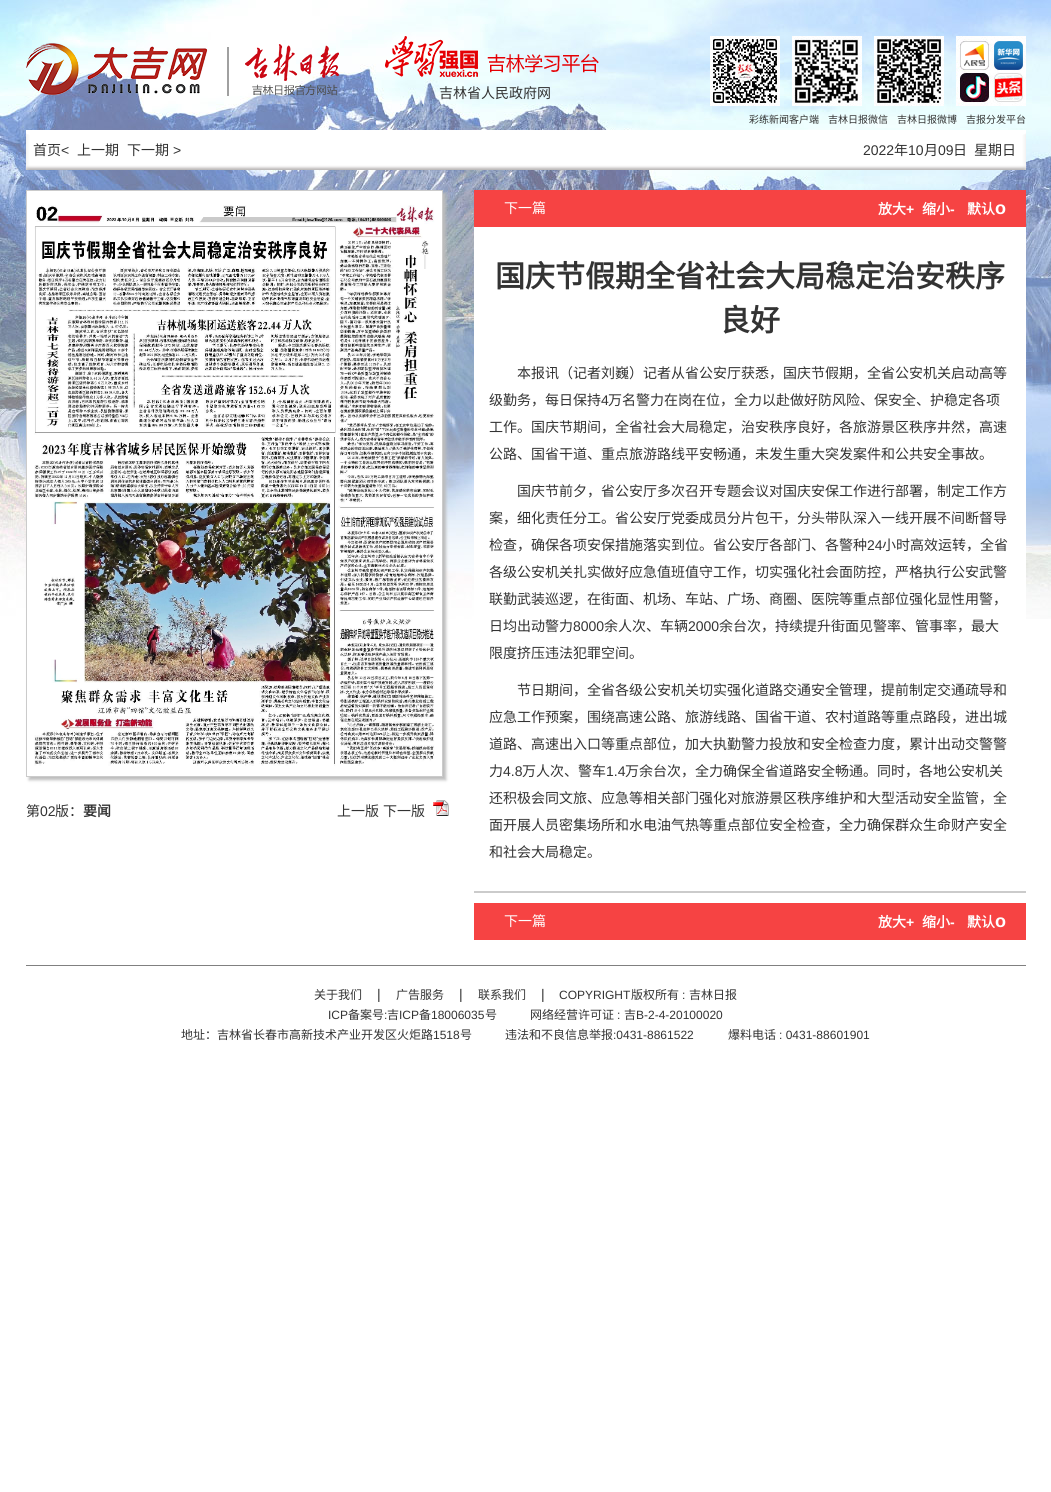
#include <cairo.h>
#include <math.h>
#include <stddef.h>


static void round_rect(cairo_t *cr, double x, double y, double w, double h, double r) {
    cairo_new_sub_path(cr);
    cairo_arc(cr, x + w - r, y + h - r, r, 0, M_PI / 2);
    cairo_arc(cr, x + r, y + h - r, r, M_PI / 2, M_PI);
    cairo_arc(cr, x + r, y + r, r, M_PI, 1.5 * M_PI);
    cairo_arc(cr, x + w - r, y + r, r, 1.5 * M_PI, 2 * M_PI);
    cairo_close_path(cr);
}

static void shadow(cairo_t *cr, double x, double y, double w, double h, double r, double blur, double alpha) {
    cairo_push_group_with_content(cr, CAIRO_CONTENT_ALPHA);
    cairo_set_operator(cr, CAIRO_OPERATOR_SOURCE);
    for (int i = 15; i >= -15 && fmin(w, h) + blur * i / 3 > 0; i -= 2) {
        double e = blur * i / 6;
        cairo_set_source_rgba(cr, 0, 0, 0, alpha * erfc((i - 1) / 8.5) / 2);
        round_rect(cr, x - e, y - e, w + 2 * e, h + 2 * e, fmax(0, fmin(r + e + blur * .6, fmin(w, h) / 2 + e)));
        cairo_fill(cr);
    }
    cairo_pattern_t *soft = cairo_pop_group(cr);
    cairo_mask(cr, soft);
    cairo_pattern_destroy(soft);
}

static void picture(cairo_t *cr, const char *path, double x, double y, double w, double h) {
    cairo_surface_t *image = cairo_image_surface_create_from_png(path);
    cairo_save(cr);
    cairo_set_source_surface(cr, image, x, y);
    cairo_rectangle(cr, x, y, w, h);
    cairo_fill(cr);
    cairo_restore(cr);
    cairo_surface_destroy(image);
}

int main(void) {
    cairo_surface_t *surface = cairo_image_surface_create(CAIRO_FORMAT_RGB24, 1051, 1492);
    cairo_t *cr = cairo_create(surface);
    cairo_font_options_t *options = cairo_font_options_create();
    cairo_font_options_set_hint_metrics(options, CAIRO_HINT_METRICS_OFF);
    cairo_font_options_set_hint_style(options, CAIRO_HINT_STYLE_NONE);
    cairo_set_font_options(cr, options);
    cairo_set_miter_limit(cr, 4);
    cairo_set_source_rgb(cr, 1, 1, 1);
    cairo_paint(cr);
    picture(cr, "img1.png", 0, 0, 1051, 619);
    picture(cr, "img2.png", 26, 43, 313, 53);
    picture(cr, "img3.png", 385, 36, 214, 42);
    cairo_select_font_face(cr, "Noto Sans CJK SC", CAIRO_FONT_SLANT_NORMAL, CAIRO_FONT_WEIGHT_NORMAL);
    cairo_set_font_size(cr, 14);
    cairo_set_source_rgb(cr, 0.2, 0.2, 0.2);
    cairo_move_to(cr, 439, 98);
    cairo_show_text(cr, "吉林省人民政府网");
    picture(cr, "img4.png", 710, 36, 70, 70);
    picture(cr, "img5.png", 792, 36, 70, 70);
    picture(cr, "img6.png", 874, 36, 70, 70);
    picture(cr, "img7.png", 956, 36, 70, 70);
    cairo_set_font_size(cr, 10);
    cairo_move_to(cr, 749, 123);
    cairo_show_text(cr, "彩练新闻客户端");
    cairo_move_to(cr, 828, 123);
    cairo_show_text(cr, "吉林日报微信");
    cairo_move_to(cr, 897, 123);
    cairo_show_text(cr, "吉林日报微博");
    cairo_move_to(cr, 966, 123);
    cairo_show_text(cr, "吉报分发平台");
    picture(cr, "img8.png", 26, 130, 1000, 40);
    cairo_set_font_size(cr, 14);
    cairo_move_to(cr, 33, 155);
    cairo_show_text(cr, "首页");
    cairo_select_font_face(cr, "Liberation Sans", CAIRO_FONT_SLANT_NORMAL, CAIRO_FONT_WEIGHT_NORMAL);
    cairo_move_to(cr, 61, 155);
    cairo_show_text(cr, "<");
    cairo_select_font_face(cr, "Noto Sans CJK SC", CAIRO_FONT_SLANT_NORMAL, CAIRO_FONT_WEIGHT_NORMAL);
    cairo_move_to(cr, 77, 155);
    cairo_show_text(cr, "上一期");
    cairo_move_to(cr, 127, 155);
    cairo_show_text(cr, "下一期");
    cairo_select_font_face(cr, "Liberation Sans", CAIRO_FONT_SLANT_NORMAL, CAIRO_FONT_WEIGHT_NORMAL);
    cairo_move_to(cr, 173, 155);
    cairo_show_text(cr, ">");
    cairo_move_to(cr, 863, 155);
    cairo_show_text(cr, "2022");
    cairo_select_font_face(cr, "Noto Sans CJK SC", CAIRO_FONT_SLANT_NORMAL, CAIRO_FONT_WEIGHT_NORMAL);
    cairo_move_to(cr, 894, 155);
    cairo_show_text(cr, "年");
    cairo_select_font_face(cr, "Liberation Sans", CAIRO_FONT_SLANT_NORMAL, CAIRO_FONT_WEIGHT_NORMAL);
    cairo_move_to(cr, 908, 155);
    cairo_show_text(cr, "10");
    cairo_select_font_face(cr, "Noto Sans CJK SC", CAIRO_FONT_SLANT_NORMAL, CAIRO_FONT_WEIGHT_NORMAL);
    cairo_move_to(cr, 924, 155);
    cairo_show_text(cr, "月");
    cairo_select_font_face(cr, "Liberation Sans", CAIRO_FONT_SLANT_NORMAL, CAIRO_FONT_WEIGHT_NORMAL);
    cairo_move_to(cr, 938, 155);
    cairo_show_text(cr, "09");
    cairo_select_font_face(cr, "Noto Sans CJK SC", CAIRO_FONT_SLANT_NORMAL, CAIRO_FONT_WEIGHT_NORMAL);
    cairo_move_to(cr, 953, 155);
    cairo_show_text(cr, "日");
    cairo_move_to(cr, 974, 155);
    cairo_show_text(cr, "星期日");
    cairo_save(cr);
    cairo_set_fill_rule(cr, CAIRO_FILL_RULE_EVEN_ODD);
    cairo_new_path(cr);
    cairo_move_to(cr, 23, 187);
    cairo_line_to(cr, 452, 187);
    cairo_line_to(cr, 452, 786);
    cairo_line_to(cr, 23, 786);
    cairo_close_path(cr);
    cairo_move_to(cr, 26, 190);
    cairo_line_to(cr, 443, 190);
    cairo_line_to(cr, 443, 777);
    cairo_line_to(cr, 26, 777);
    cairo_close_path(cr);
    cairo_clip(cr);
    cairo_set_source_rgb(cr, 0.737, 0.737, 0.737);
    shadow(cr, 29, 193, 417, 587, 0, 1.5, 1);
    cairo_restore(cr);
    cairo_rectangle(cr, 26.5, 190.5, 416, 586);
    cairo_set_source_rgb(cr, 0.796, 0.796, 0.796);
    cairo_set_line_width(cr, 1);
    cairo_stroke(cr);
    picture(cr, "img9.png", 27, 191, 415, 575);
    cairo_set_source_rgb(cr, 0.2, 0.2, 0.2);
    cairo_move_to(cr, 26, 816);
    cairo_show_text(cr, "第");
    cairo_select_font_face(cr, "Liberation Sans", CAIRO_FONT_SLANT_NORMAL, CAIRO_FONT_WEIGHT_NORMAL);
    cairo_move_to(cr, 40, 816);
    cairo_show_text(cr, "02");
    cairo_select_font_face(cr, "Noto Sans CJK SC", CAIRO_FONT_SLANT_NORMAL, CAIRO_FONT_WEIGHT_NORMAL);
    cairo_move_to(cr, 55, 816);
    cairo_show_text(cr, "版：");
    cairo_select_font_face(cr, "Noto Sans CJK SC", CAIRO_FONT_SLANT_NORMAL, CAIRO_FONT_WEIGHT_BOLD);
    cairo_move_to(cr, 83, 816);
    cairo_show_text(cr, "要闻");
    cairo_select_font_face(cr, "Noto Sans CJK SC", CAIRO_FONT_SLANT_NORMAL, CAIRO_FONT_WEIGHT_NORMAL);
    cairo_move_to(cr, 337, 816);
    cairo_show_text(cr, "上一版");
    cairo_move_to(cr, 383, 816);
    cairo_show_text(cr, "下一版");
    picture(cr, "img10.png", 433, 800, 16, 16);
    cairo_set_source_rgb(cr, 0.961, 0.263, 0.263);
    cairo_rectangle(cr, 474, 190, 552, 37);
    cairo_fill(cr);
    cairo_set_source_rgb(cr, 1, 1, 1);
    cairo_move_to(cr, 504, 213);
    cairo_show_text(cr, "下一篇");
    cairo_select_font_face(cr, "Noto Sans CJK SC", CAIRO_FONT_SLANT_NORMAL, CAIRO_FONT_WEIGHT_BOLD);
    cairo_move_to(cr, 878, 214);
    cairo_show_text(cr, "放大");
    cairo_select_font_face(cr, "Liberation Sans", CAIRO_FONT_SLANT_NORMAL, CAIRO_FONT_WEIGHT_BOLD);
    cairo_move_to(cr, 906, 214);
    cairo_show_text(cr, "+");
    cairo_select_font_face(cr, "Noto Sans CJK SC", CAIRO_FONT_SLANT_NORMAL, CAIRO_FONT_WEIGHT_BOLD);
    cairo_move_to(cr, 922, 214);
    cairo_show_text(cr, "缩小");
    cairo_select_font_face(cr, "Liberation Sans", CAIRO_FONT_SLANT_NORMAL, CAIRO_FONT_WEIGHT_BOLD);
    cairo_move_to(cr, 950, 214);
    cairo_show_text(cr, "-");
    cairo_select_font_face(cr, "Noto Sans CJK SC", CAIRO_FONT_SLANT_NORMAL, CAIRO_FONT_WEIGHT_BOLD);
    cairo_move_to(cr, 967, 214);
    cairo_show_text(cr, "默认");
    cairo_select_font_face(cr, "Liberation Sans", CAIRO_FONT_SLANT_NORMAL, CAIRO_FONT_WEIGHT_BOLD);
    cairo_set_font_size(cr, 18);
    cairo_move_to(cr, 995, 214);
    cairo_show_text(cr, "o");
    cairo_rectangle(cr, 474, 227, 552, 392);
    cairo_fill(cr);
    cairo_set_source_rgb(cr, 0.796, 0.796, 0.796);
    cairo_rectangle(cr, 474, 891, 552, 2);
    cairo_fill(cr);
    cairo_select_font_face(cr, "Noto Sans CJK SC", CAIRO_FONT_SLANT_NORMAL, CAIRO_FONT_WEIGHT_BOLD);
    cairo_set_font_size(cr, 30);
    cairo_set_source_rgb(cr, 0.2, 0.2, 0.2);
    cairo_move_to(cr, 495, 287);
    cairo_show_text(cr, "国庆节假期全省社会大局稳定治安秩序");
    cairo_move_to(cr, 720, 331);
    cairo_show_text(cr, "良好");
    cairo_select_font_face(cr, "Noto Sans CJK SC", CAIRO_FONT_SLANT_NORMAL, CAIRO_FONT_WEIGHT_NORMAL);
    cairo_set_font_size(cr, 14);
    cairo_move_to(cr, 517, 378);
    cairo_show_text(cr, "本报讯（记者刘巍）记者从省公安厅获悉，国庆节假期，全省公安机关启动高等");
    cairo_move_to(cr, 489, 405);
    cairo_show_text(cr, "级勤务，每日保持");
    cairo_select_font_face(cr, "Liberation Sans", CAIRO_FONT_SLANT_NORMAL, CAIRO_FONT_WEIGHT_NORMAL);
    cairo_move_to(cr, 601, 405);
    cairo_show_text(cr, "4");
    cairo_select_font_face(cr, "Noto Sans CJK SC", CAIRO_FONT_SLANT_NORMAL, CAIRO_FONT_WEIGHT_NORMAL);
    cairo_move_to(cr, 608, 405);
    cairo_show_text(cr, "万名警力在岗在位，全力以赴做好防风险、保安全、护稳定各项");
    cairo_move_to(cr, 489, 432);
    cairo_show_text(cr, "工作。国庆节期间，全省社会大局稳定，治安秩序良好，各旅游景区秩序井然，高速");
    cairo_move_to(cr, 489, 459);
    cairo_show_text(cr, "公路、国省干道、重点旅游路线平安畅通，未发生重大突发案件和公共安全事故。");
    cairo_move_to(cr, 517, 496);
    cairo_show_text(cr, "国庆节前夕，省公安厅多次召开专题会议对国庆安保工作进行部署，制定工作方");
    cairo_move_to(cr, 489, 523);
    cairo_show_text(cr, "案，细化责任分工。省公安厅党委成员分片包干，分头带队深入一线开展不间断督导");
    cairo_move_to(cr, 489, 550);
    cairo_show_text(cr, "检查，确保各项安保措施落实到位。省公安厅各部门、各警种");
    cairo_select_font_face(cr, "Liberation Sans", CAIRO_FONT_SLANT_NORMAL, CAIRO_FONT_WEIGHT_NORMAL);
    cairo_move_to(cr, 867, 550);
    cairo_show_text(cr, "24");
    cairo_select_font_face(cr, "Noto Sans CJK SC", CAIRO_FONT_SLANT_NORMAL, CAIRO_FONT_WEIGHT_NORMAL);
    cairo_move_to(cr, 882, 550);
    cairo_show_text(cr, "小时高效运转，全省");
    cairo_move_to(cr, 489, 577);
    cairo_show_text(cr, "各级公安机关扎实做好应急值班值守工作，切实强化社会面防控，严格执行公安武警");
    cairo_move_to(cr, 489, 604);
    cairo_show_text(cr, "联勤武装巡逻，在街面、机场、车站、广场、商圈、医院等重点部位强化显性用警，");
    cairo_move_to(cr, 489, 631);
    cairo_show_text(cr, "日均出动警力");
    cairo_select_font_face(cr, "Liberation Sans", CAIRO_FONT_SLANT_NORMAL, CAIRO_FONT_WEIGHT_NORMAL);
    cairo_move_to(cr, 573, 631);
    cairo_show_text(cr, "8000");
    cairo_select_font_face(cr, "Noto Sans CJK SC", CAIRO_FONT_SLANT_NORMAL, CAIRO_FONT_WEIGHT_NORMAL);
    cairo_move_to(cr, 604, 631);
    cairo_show_text(cr, "余人次、车辆");
    cairo_select_font_face(cr, "Liberation Sans", CAIRO_FONT_SLANT_NORMAL, CAIRO_FONT_WEIGHT_NORMAL);
    cairo_move_to(cr, 688, 631);
    cairo_show_text(cr, "2000");
    cairo_select_font_face(cr, "Noto Sans CJK SC", CAIRO_FONT_SLANT_NORMAL, CAIRO_FONT_WEIGHT_NORMAL);
    cairo_move_to(cr, 719, 631);
    cairo_show_text(cr, "余台次，持续提升街面见警率、管事率，最大");
    cairo_move_to(cr, 489, 658);
    cairo_show_text(cr, "限度挤压违法犯罪空间。");
    cairo_move_to(cr, 517, 695);
    cairo_show_text(cr, "节日期间，全省各级公安机关切实强化道路交通安全管理，提前制定交通疏导和");
    cairo_move_to(cr, 489, 722);
    cairo_show_text(cr, "应急工作预案，围绕高速公路、旅游线路、国省干道、农村道路等重点路段，进出城");
    cairo_move_to(cr, 489, 749);
    cairo_show_text(cr, "道路、高速出入口等重点部位，加大执勤警力投放和安全检查力度，累计出动交警警");
    cairo_move_to(cr, 489, 776);
    cairo_show_text(cr, "力");
    cairo_select_font_face(cr, "Liberation Sans", CAIRO_FONT_SLANT_NORMAL, CAIRO_FONT_WEIGHT_NORMAL);
    cairo_move_to(cr, 503, 776);
    cairo_show_text(cr, "4.8");
    cairo_select_font_face(cr, "Noto Sans CJK SC", CAIRO_FONT_SLANT_NORMAL, CAIRO_FONT_WEIGHT_NORMAL);
    cairo_move_to(cr, 522, 776);
    cairo_show_text(cr, "万人次、警车");
    cairo_select_font_face(cr, "Liberation Sans", CAIRO_FONT_SLANT_NORMAL, CAIRO_FONT_WEIGHT_NORMAL);
    cairo_move_to(cr, 606, 776);
    cairo_show_text(cr, "1.4");
    cairo_select_font_face(cr, "Noto Sans CJK SC", CAIRO_FONT_SLANT_NORMAL, CAIRO_FONT_WEIGHT_NORMAL);
    cairo_move_to(cr, 625, 776);
    cairo_show_text(cr, "万余台次，全力确保全省道路安全畅通。同时，各地公安机关");
    cairo_move_to(cr, 489, 803);
    cairo_show_text(cr, "还积极会同文旅、应急等相关部门强化对旅游景区秩序维护和大型活动安全监管，全");
    cairo_move_to(cr, 489, 830);
    cairo_show_text(cr, "面开展人员密集场所和水电油气热等重点部位安全检查，全力确保群众生命财产安全");
    cairo_move_to(cr, 489, 857);
    cairo_show_text(cr, "和社会大局稳定。");
    cairo_set_source_rgb(cr, 0.961, 0.263, 0.263);
    cairo_rectangle(cr, 474, 903, 552, 37);
    cairo_fill(cr);
    cairo_set_source_rgb(cr, 1, 1, 1);
    cairo_move_to(cr, 504, 926);
    cairo_show_text(cr, "下一篇");
    cairo_select_font_face(cr, "Noto Sans CJK SC", CAIRO_FONT_SLANT_NORMAL, CAIRO_FONT_WEIGHT_BOLD);
    cairo_move_to(cr, 878, 927);
    cairo_show_text(cr, "放大");
    cairo_select_font_face(cr, "Liberation Sans", CAIRO_FONT_SLANT_NORMAL, CAIRO_FONT_WEIGHT_BOLD);
    cairo_move_to(cr, 906, 927);
    cairo_show_text(cr, "+");
    cairo_select_font_face(cr, "Noto Sans CJK SC", CAIRO_FONT_SLANT_NORMAL, CAIRO_FONT_WEIGHT_BOLD);
    cairo_move_to(cr, 922, 927);
    cairo_show_text(cr, "缩小");
    cairo_select_font_face(cr, "Liberation Sans", CAIRO_FONT_SLANT_NORMAL, CAIRO_FONT_WEIGHT_BOLD);
    cairo_move_to(cr, 950, 927);
    cairo_show_text(cr, "-");
    cairo_select_font_face(cr, "Noto Sans CJK SC", CAIRO_FONT_SLANT_NORMAL, CAIRO_FONT_WEIGHT_BOLD);
    cairo_move_to(cr, 967, 927);
    cairo_show_text(cr, "默认");
    cairo_select_font_face(cr, "Liberation Sans", CAIRO_FONT_SLANT_NORMAL, CAIRO_FONT_WEIGHT_BOLD);
    cairo_set_font_size(cr, 18);
    cairo_move_to(cr, 995, 927);
    cairo_show_text(cr, "o");
    cairo_set_source_rgb(cr, 0.502, 0.502, 0.502);
    cairo_rectangle(cr, 26, 965, 1000, 1);
    cairo_fill(cr);
    cairo_select_font_face(cr, "Noto Sans CJK SC", CAIRO_FONT_SLANT_NORMAL, CAIRO_FONT_WEIGHT_NORMAL);
    cairo_set_font_size(cr, 12);
    cairo_set_source_rgb(cr, 0.2, 0.2, 0.2);
    cairo_move_to(cr, 314, 999);
    cairo_show_text(cr, "关于我们");
    cairo_select_font_face(cr, "Liberation Sans", CAIRO_FONT_SLANT_NORMAL, CAIRO_FONT_WEIGHT_NORMAL);
    cairo_set_font_size(cr, 14);
    cairo_move_to(cr, 377, 999);
    cairo_show_text(cr, "|");
    cairo_select_font_face(cr, "Noto Sans CJK SC", CAIRO_FONT_SLANT_NORMAL, CAIRO_FONT_WEIGHT_NORMAL);
    cairo_set_font_size(cr, 12);
    cairo_move_to(cr, 396, 999);
    cairo_show_text(cr, "广告服务");
    cairo_select_font_face(cr, "Liberation Sans", CAIRO_FONT_SLANT_NORMAL, CAIRO_FONT_WEIGHT_NORMAL);
    cairo_set_font_size(cr, 14);
    cairo_move_to(cr, 459, 999);
    cairo_show_text(cr, "|");
    cairo_select_font_face(cr, "Noto Sans CJK SC", CAIRO_FONT_SLANT_NORMAL, CAIRO_FONT_WEIGHT_NORMAL);
    cairo_set_font_size(cr, 12);
    cairo_move_to(cr, 478, 999);
    cairo_show_text(cr, "联系我们");
    cairo_select_font_face(cr, "Liberation Sans", CAIRO_FONT_SLANT_NORMAL, CAIRO_FONT_WEIGHT_NORMAL);
    cairo_set_font_size(cr, 14);
    cairo_move_to(cr, 541, 999);
    cairo_show_text(cr, "|");
    cairo_set_font_size(cr, 12);
    cairo_move_to(cr, 559, 999);
    cairo_show_text(cr, "COPYRIGHT");
    cairo_select_font_face(cr, "Noto Sans CJK SC", CAIRO_FONT_SLANT_NORMAL, CAIRO_FONT_WEIGHT_NORMAL);
    cairo_move_to(cr, 631, 999);
    cairo_show_text(cr, "版权所有");
    cairo_select_font_face(cr, "Liberation Sans", CAIRO_FONT_SLANT_NORMAL, CAIRO_FONT_WEIGHT_NORMAL);
    cairo_move_to(cr, 682, 999);
    cairo_show_text(cr, ":");
    cairo_select_font_face(cr, "Noto Sans CJK SC", CAIRO_FONT_SLANT_NORMAL, CAIRO_FONT_WEIGHT_NORMAL);
    cairo_move_to(cr, 689, 999);
    cairo_show_text(cr, "吉林日报");
    cairo_select_font_face(cr, "Liberation Sans", CAIRO_FONT_SLANT_NORMAL, CAIRO_FONT_WEIGHT_NORMAL);
    cairo_move_to(cr, 328, 1019);
    cairo_show_text(cr, "ICP");
    cairo_select_font_face(cr, "Noto Sans CJK SC", CAIRO_FONT_SLANT_NORMAL, CAIRO_FONT_WEIGHT_NORMAL);
    cairo_move_to(cr, 348, 1019);
    cairo_show_text(cr, "备案号");
    cairo_select_font_face(cr, "Liberation Sans", CAIRO_FONT_SLANT_NORMAL, CAIRO_FONT_WEIGHT_NORMAL);
    cairo_move_to(cr, 384, 1019);
    cairo_show_text(cr, ":");
    cairo_select_font_face(cr, "Noto Sans CJK SC", CAIRO_FONT_SLANT_NORMAL, CAIRO_FONT_WEIGHT_NORMAL);
    cairo_move_to(cr, 387, 1019);
    cairo_show_text(cr, "吉");
    cairo_select_font_face(cr, "Liberation Sans", CAIRO_FONT_SLANT_NORMAL, CAIRO_FONT_WEIGHT_NORMAL);
    cairo_move_to(cr, 399, 1019);
    cairo_show_text(cr, "ICP");
    cairo_select_font_face(cr, "Noto Sans CJK SC", CAIRO_FONT_SLANT_NORMAL, CAIRO_FONT_WEIGHT_NORMAL);
    cairo_move_to(cr, 419, 1019);
    cairo_show_text(cr, "备");
    cairo_select_font_face(cr, "Liberation Sans", CAIRO_FONT_SLANT_NORMAL, CAIRO_FONT_WEIGHT_NORMAL);
    cairo_move_to(cr, 431, 1019);
    cairo_show_text(cr, "18006035");
    cairo_select_font_face(cr, "Noto Sans CJK SC", CAIRO_FONT_SLANT_NORMAL, CAIRO_FONT_WEIGHT_NORMAL);
    cairo_move_to(cr, 485, 1019);
    cairo_show_text(cr, "号");
    cairo_move_to(cr, 530, 1019);
    cairo_show_text(cr, "网络经营许可证");
    cairo_select_font_face(cr, "Liberation Sans", CAIRO_FONT_SLANT_NORMAL, CAIRO_FONT_WEIGHT_NORMAL);
    cairo_move_to(cr, 617, 1019);
    cairo_show_text(cr, ":");
    cairo_select_font_face(cr, "Noto Sans CJK SC", CAIRO_FONT_SLANT_NORMAL, CAIRO_FONT_WEIGHT_NORMAL);
    cairo_move_to(cr, 624, 1019);
    cairo_show_text(cr, "吉");
    cairo_select_font_face(cr, "Liberation Sans", CAIRO_FONT_SLANT_NORMAL, CAIRO_FONT_WEIGHT_NORMAL);
    cairo_move_to(cr, 636, 1019);
    cairo_show_text(cr, "B-2-4-20100020");
    cairo_select_font_face(cr, "Noto Sans CJK SC", CAIRO_FONT_SLANT_NORMAL, CAIRO_FONT_WEIGHT_NORMAL);
    cairo_move_to(cr, 181, 1039);
    cairo_show_text(cr, "地址：吉林省长春市高新技术产业开发区火炬路");
    cairo_select_font_face(cr, "Liberation Sans", CAIRO_FONT_SLANT_NORMAL, CAIRO_FONT_WEIGHT_NORMAL);
    cairo_move_to(cr, 433, 1039);
    cairo_show_text(cr, "1518");
    cairo_select_font_face(cr, "Noto Sans CJK SC", CAIRO_FONT_SLANT_NORMAL, CAIRO_FONT_WEIGHT_NORMAL);
    cairo_move_to(cr, 460, 1039);
    cairo_show_text(cr, "号");
    cairo_move_to(cr, 505, 1039);
    cairo_show_text(cr, "违法和不良信息举报");
    cairo_select_font_face(cr, "Liberation Sans", CAIRO_FONT_SLANT_NORMAL, CAIRO_FONT_WEIGHT_NORMAL);
    cairo_move_to(cr, 613, 1039);
    cairo_show_text(cr, ":0431-8861522");
    cairo_select_font_face(cr, "Noto Sans CJK SC", CAIRO_FONT_SLANT_NORMAL, CAIRO_FONT_WEIGHT_NORMAL);
    cairo_move_to(cr, 728, 1039);
    cairo_show_text(cr, "爆料电话");
    cairo_select_font_face(cr, "Liberation Sans", CAIRO_FONT_SLANT_NORMAL, CAIRO_FONT_WEIGHT_NORMAL);
    cairo_move_to(cr, 779, 1039);
    cairo_show_text(cr, ": 0431-88601901");
    cairo_surface_write_to_png(surface, "page.png");
    cairo_font_options_destroy(options);
    cairo_destroy(cr);
    cairo_surface_destroy(surface);
    return 0;
}
